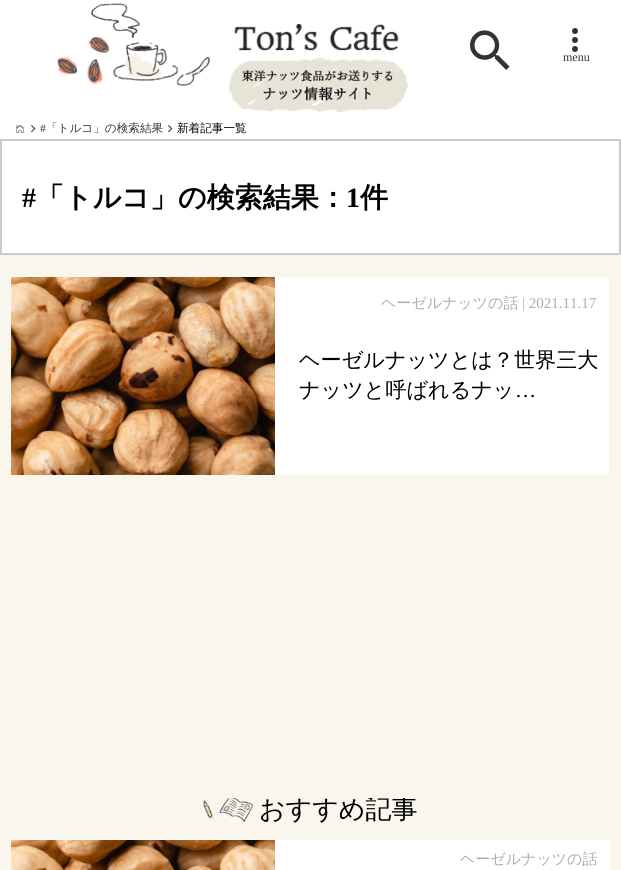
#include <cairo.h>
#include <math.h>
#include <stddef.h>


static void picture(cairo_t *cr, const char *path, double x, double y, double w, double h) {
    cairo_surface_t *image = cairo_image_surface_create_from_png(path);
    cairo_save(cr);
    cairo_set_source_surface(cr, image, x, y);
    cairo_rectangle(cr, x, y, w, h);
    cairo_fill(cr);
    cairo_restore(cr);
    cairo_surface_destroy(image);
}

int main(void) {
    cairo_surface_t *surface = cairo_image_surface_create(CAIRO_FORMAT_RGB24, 621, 870);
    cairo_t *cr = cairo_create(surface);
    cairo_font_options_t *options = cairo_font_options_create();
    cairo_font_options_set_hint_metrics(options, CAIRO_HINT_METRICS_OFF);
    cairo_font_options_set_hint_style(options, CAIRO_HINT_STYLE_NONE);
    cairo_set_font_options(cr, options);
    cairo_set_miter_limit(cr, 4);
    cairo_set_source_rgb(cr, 1, 1, 1);
    cairo_paint(cr);
    picture(cr, "img1.png", 56, 3, 154, 83);
    picture(cr, "img2.png", 229, 24, 179, 88);
    picture(cr, "img3.png", 470, 30, 40, 40);
    cairo_set_source_rgb(cr, 0.2, 0.2, 0.2);
    cairo_arc(cr, 575, 31, 3, 0, 2 * M_PI);
    cairo_fill(cr);
    cairo_arc(cr, 575, 40, 3, 0, 2 * M_PI);
    cairo_fill(cr);
    cairo_arc(cr, 575, 49, 3, 0, 2 * M_PI);
    cairo_fill(cr);
    cairo_select_font_face(cr, "Liberation Serif", CAIRO_FONT_SLANT_NORMAL, CAIRO_FONT_WEIGHT_NORMAL);
    cairo_set_font_size(cr, 12);
    cairo_move_to(cr, 563, 61);
    cairo_show_text(cr, "menu");
    picture(cr, "img4.png", 16, 124, 8, 9);
    picture(cr, "img5.png", 31, 125, 5, 8);
    cairo_set_font_size(cr, 11.6);
    cairo_move_to(cr, 40, 132);
    cairo_show_text(cr, "#");
    cairo_select_font_face(cr, "WenQuanYi Zen Hei Medium", CAIRO_FONT_SLANT_NORMAL, CAIRO_FONT_WEIGHT_NORMAL);
    cairo_move_to(cr, 46, 132);
    cairo_show_text(cr, "「トルコ」の検索結果");
    picture(cr, "img5.png", 168, 125, 5, 8);
    cairo_set_source_rgb(cr, 0, 0, 0);
    cairo_move_to(cr, 177, 132);
    cairo_show_text(cr, "新着記事一覧");
    cairo_rectangle(cr, 0.5, 139.5, 620, 115);
    cairo_set_source_rgb(cr, 0.8, 0.8, 0.8);
    cairo_set_line_width(cr, 1);
    cairo_stroke(cr);
    cairo_rectangle(cr, 1.5, 140.5, 618, 113);
    cairo_stroke(cr);
    cairo_select_font_face(cr, "Liberation Serif", CAIRO_FONT_SLANT_NORMAL, CAIRO_FONT_WEIGHT_BOLD);
    cairo_set_font_size(cr, 28);
    cairo_set_source_rgb(cr, 0, 0, 0);
    cairo_move_to(cr, 22, 207);
    cairo_show_text(cr, "#");
    cairo_select_font_face(cr, "WenQuanYi Zen Hei", CAIRO_FONT_SLANT_NORMAL, CAIRO_FONT_WEIGHT_BOLD);
    cairo_move_to(cr, 36, 207);
    cairo_show_text(cr, "「トルコ」の検索結果：");
    cairo_select_font_face(cr, "Liberation Serif", CAIRO_FONT_SLANT_NORMAL, CAIRO_FONT_WEIGHT_BOLD);
    cairo_move_to(cr, 346, 207);
    cairo_show_text(cr, "1");
    cairo_select_font_face(cr, "WenQuanYi Zen Hei", CAIRO_FONT_SLANT_NORMAL, CAIRO_FONT_WEIGHT_BOLD);
    cairo_move_to(cr, 360, 207);
    cairo_show_text(cr, "件");
    cairo_set_source_rgb(cr, 0.976, 0.965, 0.929);
    cairo_rectangle(cr, 0, 798, 621, 72);
    cairo_fill(cr);
    cairo_select_font_face(cr, "WenQuanYi Zen Hei Medium", CAIRO_FONT_SLANT_NORMAL, CAIRO_FONT_WEIGHT_NORMAL);
    cairo_set_font_size(cr, 26);
    cairo_set_source_rgb(cr, 0, 0, 0);
    cairo_move_to(cr, 259, 818);
    cairo_show_text(cr, "おすすめ記事");
    cairo_set_source_rgb(cr, 0.976, 0.965, 0.929);
    cairo_rectangle(cr, 0, 255, 621, 543);
    cairo_fill(cr);
    cairo_set_source_rgb(cr, 1, 1, 1);
    cairo_rectangle(cr, 275, 277, 334, 198);
    cairo_fill(cr);
    picture(cr, "img6.png", 11, 277, 264, 198);
    cairo_set_font_size(cr, 15);
    cairo_set_source_rgb(cr, 0.678, 0.678, 0.678);
    cairo_move_to(cr, 381, 308);
    cairo_show_text(cr, "ヘーゼルナッツの話");
    cairo_select_font_face(cr, "Liberation Serif", CAIRO_FONT_SLANT_NORMAL, CAIRO_FONT_WEIGHT_NORMAL);
    cairo_move_to(cr, 522, 308);
    cairo_show_text(cr, "| 2021.11.17");
    cairo_select_font_face(cr, "WenQuanYi Zen Hei Medium", CAIRO_FONT_SLANT_NORMAL, CAIRO_FONT_WEIGHT_NORMAL);
    cairo_set_font_size(cr, 21.1);
    cairo_set_source_rgb(cr, 0, 0, 0);
    cairo_move_to(cr, 299, 367);
    cairo_show_text(cr, "ヘーゼルナッツとは？世界三大");
    cairo_move_to(cr, 299, 397);
    cairo_show_text(cr, "ナッツと呼ばれるナッ");
    cairo_select_font_face(cr, "Liberation Serif", CAIRO_FONT_SLANT_NORMAL, CAIRO_FONT_WEIGHT_NORMAL);
    cairo_move_to(cr, 515, 397);
    cairo_show_text(cr, "…");
    picture(cr, "img7.png", 203, 798, 50, 24);
    cairo_set_source_rgb(cr, 1, 1, 1);
    cairo_rectangle(cr, 275, 840, 335, 30);
    cairo_fill(cr);
    picture(cr, "img8.png", 11, 840, 264, 30);
    cairo_select_font_face(cr, "WenQuanYi Zen Hei Medium", CAIRO_FONT_SLANT_NORMAL, CAIRO_FONT_WEIGHT_NORMAL);
    cairo_set_font_size(cr, 15);
    cairo_set_source_rgb(cr, 0.678, 0.678, 0.678);
    cairo_move_to(cr, 460, 864);
    cairo_show_text(cr, "ヘーゼルナッツの話");
    cairo_surface_write_to_png(surface, "page.png");
    cairo_font_options_destroy(options);
    cairo_destroy(cr);
    cairo_surface_destroy(surface);
    return 0;
}
